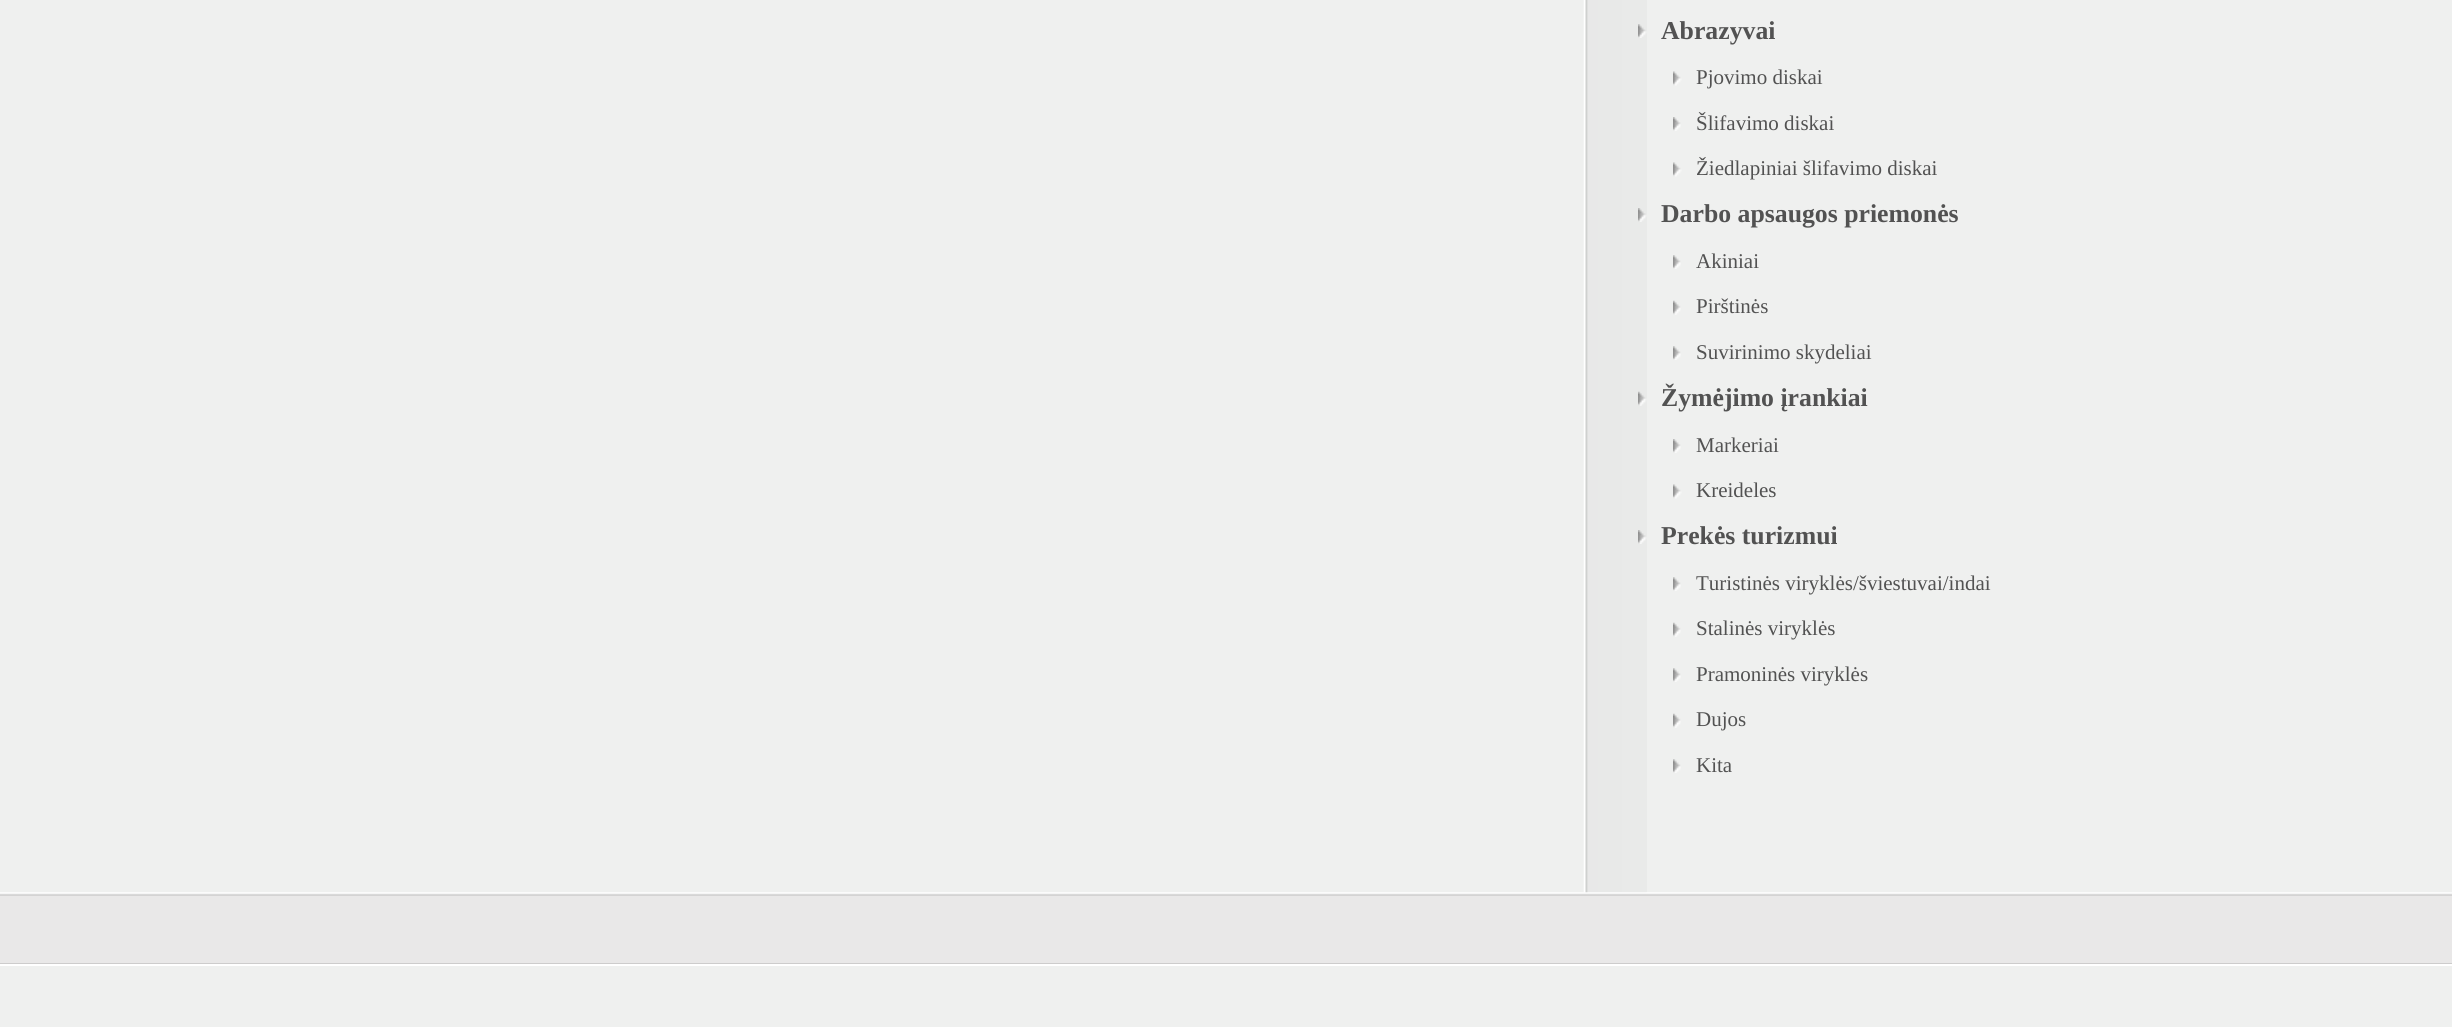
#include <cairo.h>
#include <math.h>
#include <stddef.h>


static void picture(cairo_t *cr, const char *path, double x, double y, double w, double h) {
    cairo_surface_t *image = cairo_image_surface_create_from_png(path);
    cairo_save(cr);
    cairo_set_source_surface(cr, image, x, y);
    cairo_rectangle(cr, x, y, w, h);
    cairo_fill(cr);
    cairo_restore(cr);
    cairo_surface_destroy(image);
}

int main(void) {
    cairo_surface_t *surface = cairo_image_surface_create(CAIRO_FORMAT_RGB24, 2452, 1027);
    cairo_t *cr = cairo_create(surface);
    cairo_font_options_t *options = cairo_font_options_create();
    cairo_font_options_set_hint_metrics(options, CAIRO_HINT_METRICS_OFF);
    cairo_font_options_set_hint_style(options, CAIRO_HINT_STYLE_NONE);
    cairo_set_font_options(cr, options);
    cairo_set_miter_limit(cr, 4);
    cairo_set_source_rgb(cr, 0.937, 0.941, 0.937);
    cairo_paint(cr);
    cairo_set_source_rgb(cr, 0.914, 0.91, 0.91);
    cairo_rectangle(cr, 0, 893, 2452, 70);
    cairo_fill(cr);
    picture(cr, "img9.png", 0, 892, 2452, 4);
    picture(cr, "img1.png", 1583, 0, 64, 893);
    picture(cr, "img2.png", 1638, 24, 9, 14);
    cairo_select_font_face(cr, "Liberation Serif", CAIRO_FONT_SLANT_NORMAL, CAIRO_FONT_WEIGHT_BOLD);
    cairo_set_font_size(cr, 25.75);
    cairo_set_source_rgb(cr, 0.322, 0.322, 0.322);
    cairo_move_to(cr, 1661, 39);
    cairo_show_text(cr, "Abrazyvai");
    picture(cr, "img3.png", 1673, 71, 9, 15);
    cairo_select_font_face(cr, "Liberation Serif", CAIRO_FONT_SLANT_NORMAL, CAIRO_FONT_WEIGHT_NORMAL);
    cairo_set_font_size(cr, 21);
    cairo_move_to(cr, 1696, 84);
    cairo_show_text(cr, "Pjovimo diskai");
    picture(cr, "img4.png", 1673, 117, 8, 14);
    cairo_move_to(cr, 1696, 130);
    cairo_show_text(cr, "Šlifavimo diskai");
    picture(cr, "img3.png", 1673, 162, 9, 15);
    cairo_move_to(cr, 1696, 175);
    cairo_show_text(cr, "Žiedlapiniai šlifavimo diskai");
    picture(cr, "img5.png", 1638, 208, 9, 14);
    cairo_select_font_face(cr, "Liberation Serif", CAIRO_FONT_SLANT_NORMAL, CAIRO_FONT_WEIGHT_BOLD);
    cairo_set_font_size(cr, 25.75);
    cairo_move_to(cr, 1661, 222);
    cairo_show_text(cr, "Darbo apsaugos priemonės");
    picture(cr, "img6.png", 1673, 255, 8, 14);
    cairo_select_font_face(cr, "Liberation Serif", CAIRO_FONT_SLANT_NORMAL, CAIRO_FONT_WEIGHT_NORMAL);
    cairo_set_font_size(cr, 21);
    cairo_move_to(cr, 1696, 268);
    cairo_show_text(cr, "Akiniai");
    picture(cr, "img7.png", 1673, 300, 8, 15);
    cairo_move_to(cr, 1696, 313);
    cairo_show_text(cr, "Pirštinės");
    picture(cr, "img6.png", 1673, 346, 8, 14);
    cairo_move_to(cr, 1696, 359);
    cairo_show_text(cr, "Suvirinimo skydeliai");
    picture(cr, "img8.png", 1638, 391, 9, 15);
    cairo_select_font_face(cr, "Liberation Serif", CAIRO_FONT_SLANT_NORMAL, CAIRO_FONT_WEIGHT_BOLD);
    cairo_set_font_size(cr, 25.75);
    cairo_move_to(cr, 1661, 406);
    cairo_show_text(cr, "Žymėjimo įrankiai");
    picture(cr, "img4.png", 1673, 439, 8, 14);
    cairo_select_font_face(cr, "Liberation Serif", CAIRO_FONT_SLANT_NORMAL, CAIRO_FONT_WEIGHT_NORMAL);
    cairo_set_font_size(cr, 21);
    cairo_move_to(cr, 1696, 452);
    cairo_show_text(cr, "Markeriai");
    picture(cr, "img3.png", 1673, 484, 9, 15);
    cairo_move_to(cr, 1696, 497);
    cairo_show_text(cr, "Kreideles");
    picture(cr, "img5.png", 1638, 530, 9, 14);
    cairo_select_font_face(cr, "Liberation Serif", CAIRO_FONT_SLANT_NORMAL, CAIRO_FONT_WEIGHT_BOLD);
    cairo_set_font_size(cr, 25.75);
    cairo_move_to(cr, 1661, 544);
    cairo_show_text(cr, "Prekės turizmui");
    picture(cr, "img6.png", 1673, 577, 8, 14);
    cairo_select_font_face(cr, "Liberation Serif", CAIRO_FONT_SLANT_NORMAL, CAIRO_FONT_WEIGHT_NORMAL);
    cairo_set_font_size(cr, 21);
    cairo_move_to(cr, 1696, 590);
    cairo_show_text(cr, "Turistinės viryklės/šviestuvai/indai");
    picture(cr, "img7.png", 1673, 622, 8, 15);
    cairo_move_to(cr, 1696, 635);
    cairo_show_text(cr, "Stalinės viryklės");
    picture(cr, "img6.png", 1673, 668, 8, 14);
    cairo_move_to(cr, 1696, 681);
    cairo_show_text(cr, "Pramoninės viryklės");
    picture(cr, "img7.png", 1673, 713, 8, 15);
    cairo_move_to(cr, 1696, 726);
    cairo_show_text(cr, "Dujos");
    picture(cr, "img6.png", 1673, 759, 8, 14);
    cairo_move_to(cr, 1696, 772);
    cairo_show_text(cr, "Kita");
    cairo_set_source_rgb(cr, 0.804, 0.8, 0.8);
    cairo_rectangle(cr, 0, 963, 2452, 1);
    cairo_fill(cr);
    cairo_set_source_rgb(cr, 1, 1, 1);
    cairo_rectangle(cr, 0, 964, 2452, 2);
    cairo_fill(cr);
    cairo_surface_write_to_png(surface, "page.png");
    cairo_font_options_destroy(options);
    cairo_destroy(cr);
    cairo_surface_destroy(surface);
    return 0;
}
